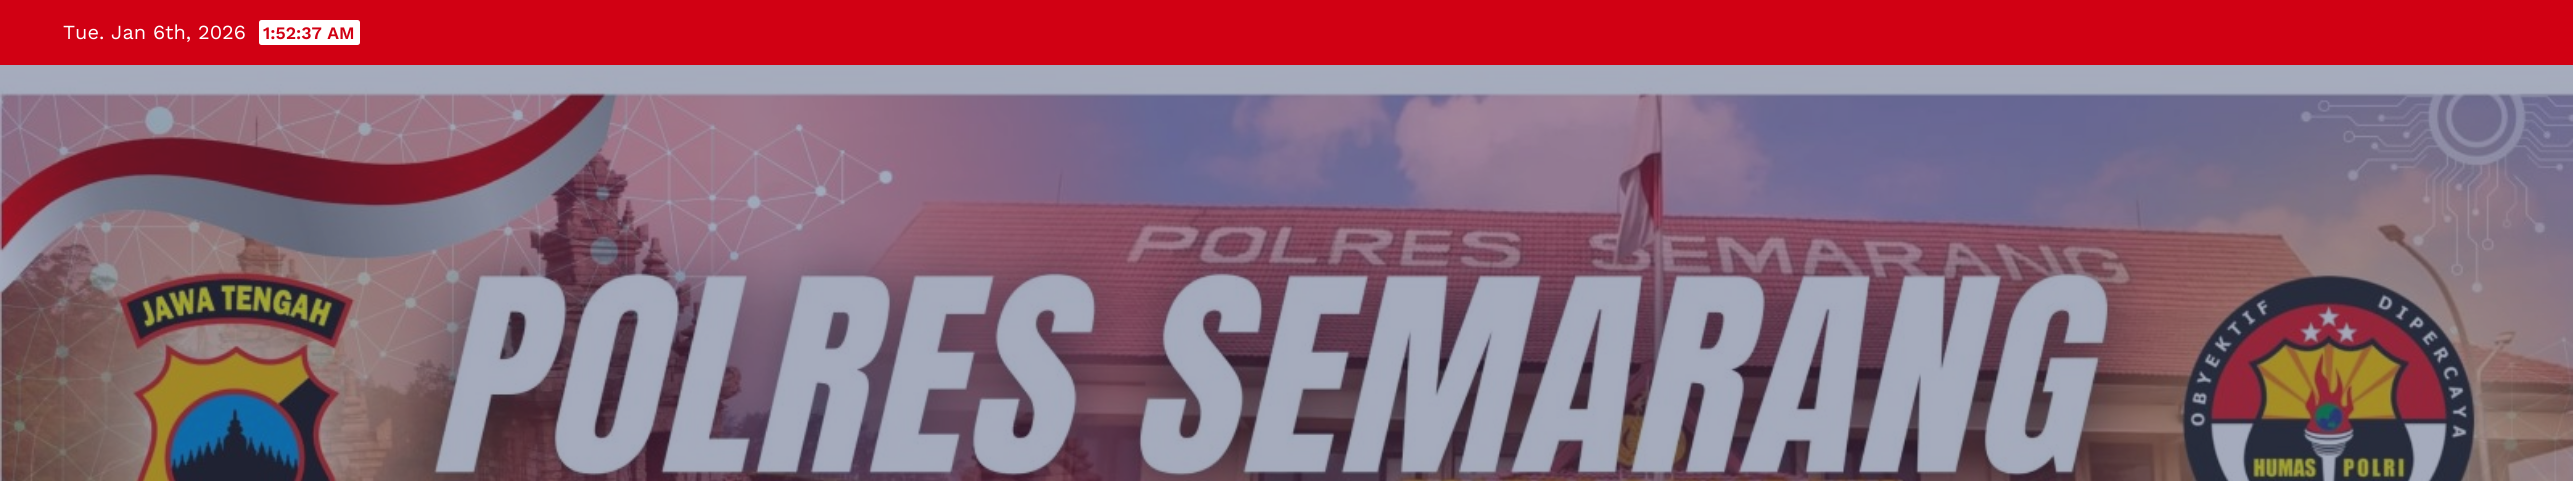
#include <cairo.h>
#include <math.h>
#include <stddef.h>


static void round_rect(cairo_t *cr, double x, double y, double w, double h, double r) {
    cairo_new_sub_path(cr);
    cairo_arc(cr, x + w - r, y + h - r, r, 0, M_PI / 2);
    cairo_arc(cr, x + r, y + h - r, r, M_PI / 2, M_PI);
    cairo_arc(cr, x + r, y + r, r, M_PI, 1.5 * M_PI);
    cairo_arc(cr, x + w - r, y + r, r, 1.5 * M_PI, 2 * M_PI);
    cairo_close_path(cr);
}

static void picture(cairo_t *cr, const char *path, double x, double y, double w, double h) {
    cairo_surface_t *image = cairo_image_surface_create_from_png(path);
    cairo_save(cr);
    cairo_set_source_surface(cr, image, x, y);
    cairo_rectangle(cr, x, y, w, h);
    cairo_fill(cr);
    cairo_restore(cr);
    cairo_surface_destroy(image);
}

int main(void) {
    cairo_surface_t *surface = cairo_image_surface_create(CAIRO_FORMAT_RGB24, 2573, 481);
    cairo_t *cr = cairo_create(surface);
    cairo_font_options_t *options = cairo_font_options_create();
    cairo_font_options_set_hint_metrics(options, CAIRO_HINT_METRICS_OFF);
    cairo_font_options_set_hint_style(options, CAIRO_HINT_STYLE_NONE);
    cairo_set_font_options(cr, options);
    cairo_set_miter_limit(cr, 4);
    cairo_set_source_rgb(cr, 0.82, 0, 0.078);
    cairo_paint(cr);
    cairo_select_font_face(cr, "Work Sans", CAIRO_FONT_SLANT_NORMAL, CAIRO_FONT_WEIGHT_NORMAL);
    cairo_set_font_size(cr, 20);
    cairo_set_source_rgb(cr, 1, 1, 1);
    cairo_move_to(cr, 63, 39);
    cairo_show_text(cr, "Tue. Jan 6th, 2026");
    round_rect(cr, 259, 20, 101, 25, 2.5);
    cairo_fill(cr);
    cairo_select_font_face(cr, "Work Sans SemiBold", CAIRO_FONT_SLANT_NORMAL, CAIRO_FONT_WEIGHT_NORMAL);
    cairo_set_font_size(cr, 17.5);
    cairo_set_source_rgb(cr, 0.82, 0, 0.078);
    cairo_move_to(cr, 263, 39);
    cairo_show_text(cr, "1:52:37 AM");
    picture(cr, "img1.png", 0, 65, 2573, 416);
    cairo_surface_write_to_png(surface, "page.png");
    cairo_font_options_destroy(options);
    cairo_destroy(cr);
    cairo_surface_destroy(surface);
    return 0;
}
